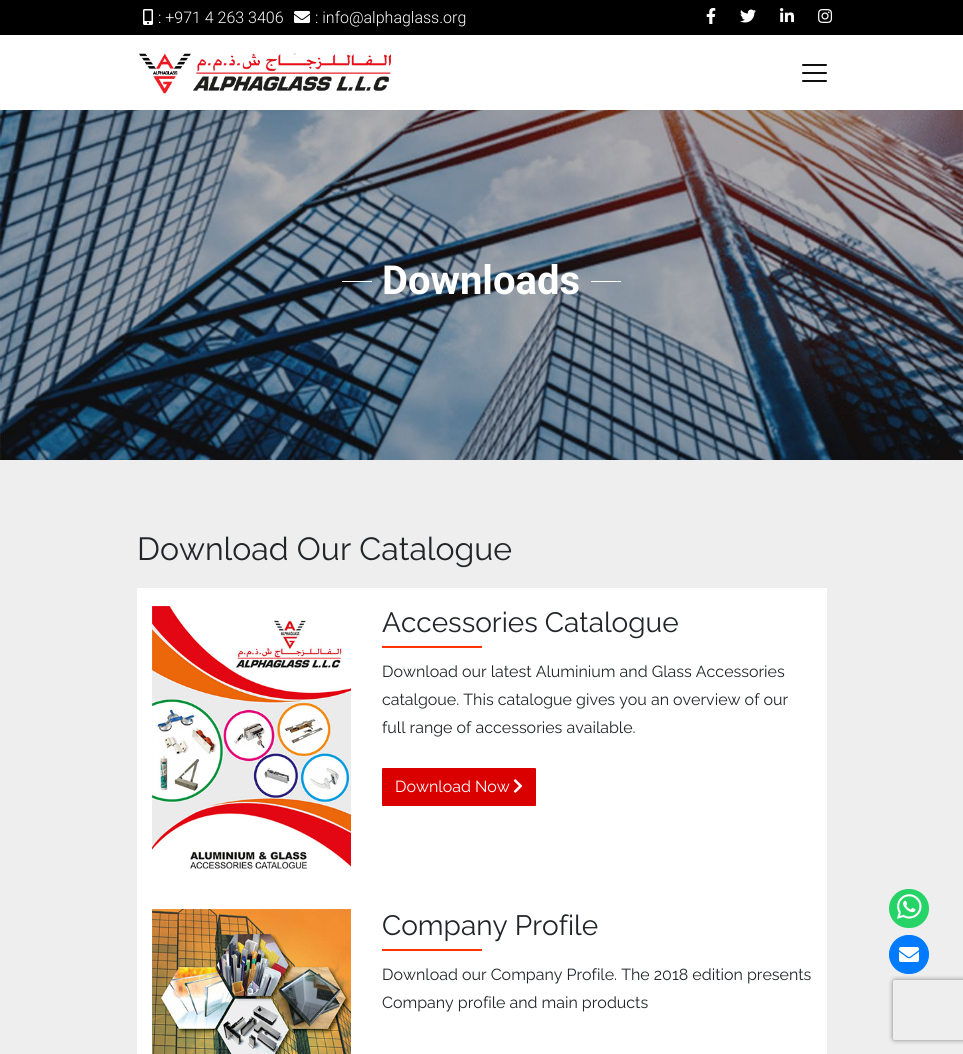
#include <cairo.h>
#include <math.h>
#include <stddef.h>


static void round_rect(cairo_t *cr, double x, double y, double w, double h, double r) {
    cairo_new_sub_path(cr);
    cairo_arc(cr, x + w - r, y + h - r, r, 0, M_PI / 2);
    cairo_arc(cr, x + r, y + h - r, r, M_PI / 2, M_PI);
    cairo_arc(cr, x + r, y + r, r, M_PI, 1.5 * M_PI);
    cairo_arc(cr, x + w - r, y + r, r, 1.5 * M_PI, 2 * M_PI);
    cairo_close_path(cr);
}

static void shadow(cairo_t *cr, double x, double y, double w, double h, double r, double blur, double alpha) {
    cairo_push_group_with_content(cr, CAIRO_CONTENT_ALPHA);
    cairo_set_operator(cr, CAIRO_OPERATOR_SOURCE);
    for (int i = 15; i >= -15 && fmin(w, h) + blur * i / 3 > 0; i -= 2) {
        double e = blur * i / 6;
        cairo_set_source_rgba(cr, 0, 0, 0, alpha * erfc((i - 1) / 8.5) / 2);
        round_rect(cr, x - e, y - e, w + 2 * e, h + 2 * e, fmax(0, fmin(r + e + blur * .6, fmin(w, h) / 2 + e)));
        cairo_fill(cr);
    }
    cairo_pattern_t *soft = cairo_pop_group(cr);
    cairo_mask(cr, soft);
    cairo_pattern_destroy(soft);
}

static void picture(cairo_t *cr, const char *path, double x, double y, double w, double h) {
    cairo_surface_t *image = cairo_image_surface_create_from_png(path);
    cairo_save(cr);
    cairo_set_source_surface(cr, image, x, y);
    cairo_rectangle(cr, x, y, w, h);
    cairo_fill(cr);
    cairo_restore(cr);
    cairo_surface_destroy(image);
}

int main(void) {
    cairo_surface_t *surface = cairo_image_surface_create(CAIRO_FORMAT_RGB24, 963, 1054);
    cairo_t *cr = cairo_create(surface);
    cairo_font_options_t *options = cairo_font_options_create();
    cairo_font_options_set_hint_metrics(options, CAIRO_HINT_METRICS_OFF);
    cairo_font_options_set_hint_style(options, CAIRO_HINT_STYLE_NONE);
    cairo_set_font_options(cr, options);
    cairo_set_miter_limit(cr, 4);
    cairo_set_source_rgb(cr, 1, 1, 1);
    cairo_paint(cr);
    cairo_set_source_rgb(cr, 0, 0, 0);
    cairo_rectangle(cr, 0, 0, 963, 35);
    cairo_fill(cr);
    picture(cr, "img1.png", 143, 9, 10, 16);
    cairo_select_font_face(cr, "Roboto Light", CAIRO_FONT_SLANT_NORMAL, CAIRO_FONT_WEIGHT_NORMAL);
    cairo_set_font_size(cr, 16);
    cairo_set_source_rgb(cr, 1, 1, 1);
    cairo_move_to(cr, 158, 23);
    cairo_show_text(cr, ": +971 4 263 3406");
    picture(cr, "img2.png", 294, 11, 16, 12);
    cairo_move_to(cr, 315, 23);
    cairo_show_text(cr, ": info@alphaglass.org");
    picture(cr, "img3.png", 706, 8, 10, 16);
    picture(cr, "img4.png", 740, 9, 16, 14);
    picture(cr, "img5.png", 780, 8, 14, 14);
    picture(cr, "img6.png", 818, 9, 15, 14);
    picture(cr, "img7.png", 139, 53, 252, 41);
    cairo_set_source_rgb(cr, 0.055, 0.055, 0.055);
    round_rect(cr, 802, 72, 25, 2, 1);
    cairo_fill(cr);
    round_rect(cr, 802, 64, 25, 2, 1);
    cairo_fill(cr);
    round_rect(cr, 802, 80, 25, 2, 1);
    cairo_fill(cr);
    picture(cr, "img8.png", 0, 110, 963, 350);
    cairo_set_source_rgb(cr, 1, 1, 1);
    cairo_rectangle(cr, 342, 281, 30, 1);
    cairo_fill(cr);
    cairo_select_font_face(cr, "Roboto", CAIRO_FONT_SLANT_NORMAL, CAIRO_FONT_WEIGHT_BOLD);
    cairo_set_font_size(cr, 40);
    cairo_move_to(cr, 382, 294);
    cairo_show_text(cr, "Downloads");
    cairo_rectangle(cr, 591, 281, 30, 1);
    cairo_fill(cr);
    cairo_set_source_rgb(cr, 0.933, 0.933, 0.933);
    cairo_rectangle(cr, 0, 460, 963, 594);
    cairo_fill(cr);
    cairo_select_font_face(cr, "Raleway", CAIRO_FONT_SLANT_NORMAL, CAIRO_FONT_WEIGHT_NORMAL);
    cairo_set_font_size(cr, 32);
    cairo_set_source_rgb(cr, 0.129, 0.145, 0.161);
    cairo_move_to(cr, 137, 560);
    cairo_show_text(cr, "Download Our Catalogue");
    cairo_set_source_rgb(cr, 1, 1, 1);
    cairo_rectangle(cr, 137, 588, 690, 466);
    cairo_fill(cr);
    picture(cr, "img9.png", 152, 606, 199, 263);
    cairo_set_font_size(cr, 28);
    cairo_set_source_rgb(cr, 0.129, 0.145, 0.161);
    cairo_move_to(cr, 382, 632);
    cairo_show_text(cr, "Accessories Catalogue");
    cairo_set_source_rgb(cr, 1, 0.2, 0);
    cairo_rectangle(cr, 382, 646, 100, 2);
    cairo_fill(cr);
    cairo_set_font_size(cr, 16);
    cairo_set_source_rgb(cr, 0.129, 0.145, 0.161);
    cairo_move_to(cr, 382, 677);
    cairo_show_text(cr, "Download our latest Aluminium and Glass Accessories");
    cairo_move_to(cr, 382, 705);
    cairo_show_text(cr, "catalgoue. This catalogue gives you an overview of our");
    cairo_move_to(cr, 382, 733);
    cairo_show_text(cr, "full range of accessories available.");
    cairo_set_source_rgb(cr, 0.859, 0, 0);
    round_rect(cr, 382, 768, 154, 38, 1);
    cairo_fill(cr);
    cairo_set_source_rgb(cr, 1, 1, 1);
    cairo_move_to(cr, 395, 792);
    cairo_show_text(cr, "Download Now");
    picture(cr, "img10.png", 513, 779, 10, 14);
    picture(cr, "img11.png", 152, 909, 199, 145);
    cairo_set_font_size(cr, 28);
    cairo_set_source_rgb(cr, 0.129, 0.145, 0.161);
    cairo_move_to(cr, 382, 935);
    cairo_show_text(cr, "Company Profile");
    cairo_set_source_rgb(cr, 1, 0.2, 0);
    cairo_rectangle(cr, 382, 949, 100, 2);
    cairo_fill(cr);
    cairo_set_font_size(cr, 16);
    cairo_set_source_rgb(cr, 0.129, 0.145, 0.161);
    cairo_move_to(cr, 382, 980);
    cairo_show_text(cr, "Download our Company Profile. The 2018 edition presents");
    cairo_move_to(cr, 382, 1008);
    cairo_show_text(cr, "Company profile and main products");
    cairo_set_source_rgb(cr, 0.145, 0.827, 0.4);
    round_rect(cr, 889, 889, 40, 39, 19.5);
    cairo_fill(cr);
    picture(cr, "img12.png", 897, 894, 25, 25);
    cairo_save(cr);
    cairo_set_fill_rule(cr, CAIRO_FILL_RULE_EVEN_ODD);
    cairo_new_path(cr);
    cairo_move_to(cr, 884, 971);
    cairo_line_to(cr, 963, 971);
    cairo_line_to(cr, 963, 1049);
    cairo_line_to(cr, 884, 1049);
    cairo_close_path(cr);
    cairo_move_to(cr, 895, 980);
    cairo_line_to(cr, 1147, 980);
    cairo_curve_to(cr, 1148, 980, 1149, 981, 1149, 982);
    cairo_line_to(cr, 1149, 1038);
    cairo_curve_to(cr, 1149, 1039, 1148, 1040, 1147, 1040);
    cairo_line_to(cr, 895, 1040);
    cairo_curve_to(cr, 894, 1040, 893, 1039, 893, 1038);
    cairo_line_to(cr, 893, 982);
    cairo_curve_to(cr, 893, 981, 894, 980, 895, 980);
    cairo_close_path(cr);
    cairo_clip(cr);
    cairo_set_source_rgb(cr, 0.502, 0.502, 0.502);
    shadow(cr, 893, 980, 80, 60, 2, 2.5, 1);
    cairo_restore(cr);
    cairo_set_source_rgb(cr, 0, 0.482, 1);
    round_rect(cr, 889.5, 935.5, 39, 38, 19);
    cairo_fill_preserve(cr);
    cairo_set_line_width(cr, 1);
    cairo_stroke(cr);
    picture(cr, "img13.png", 899, 947, 20, 15);
    cairo_surface_write_to_png(surface, "page.png");
    cairo_font_options_destroy(options);
    cairo_destroy(cr);
    cairo_surface_destroy(surface);
    return 0;
}
